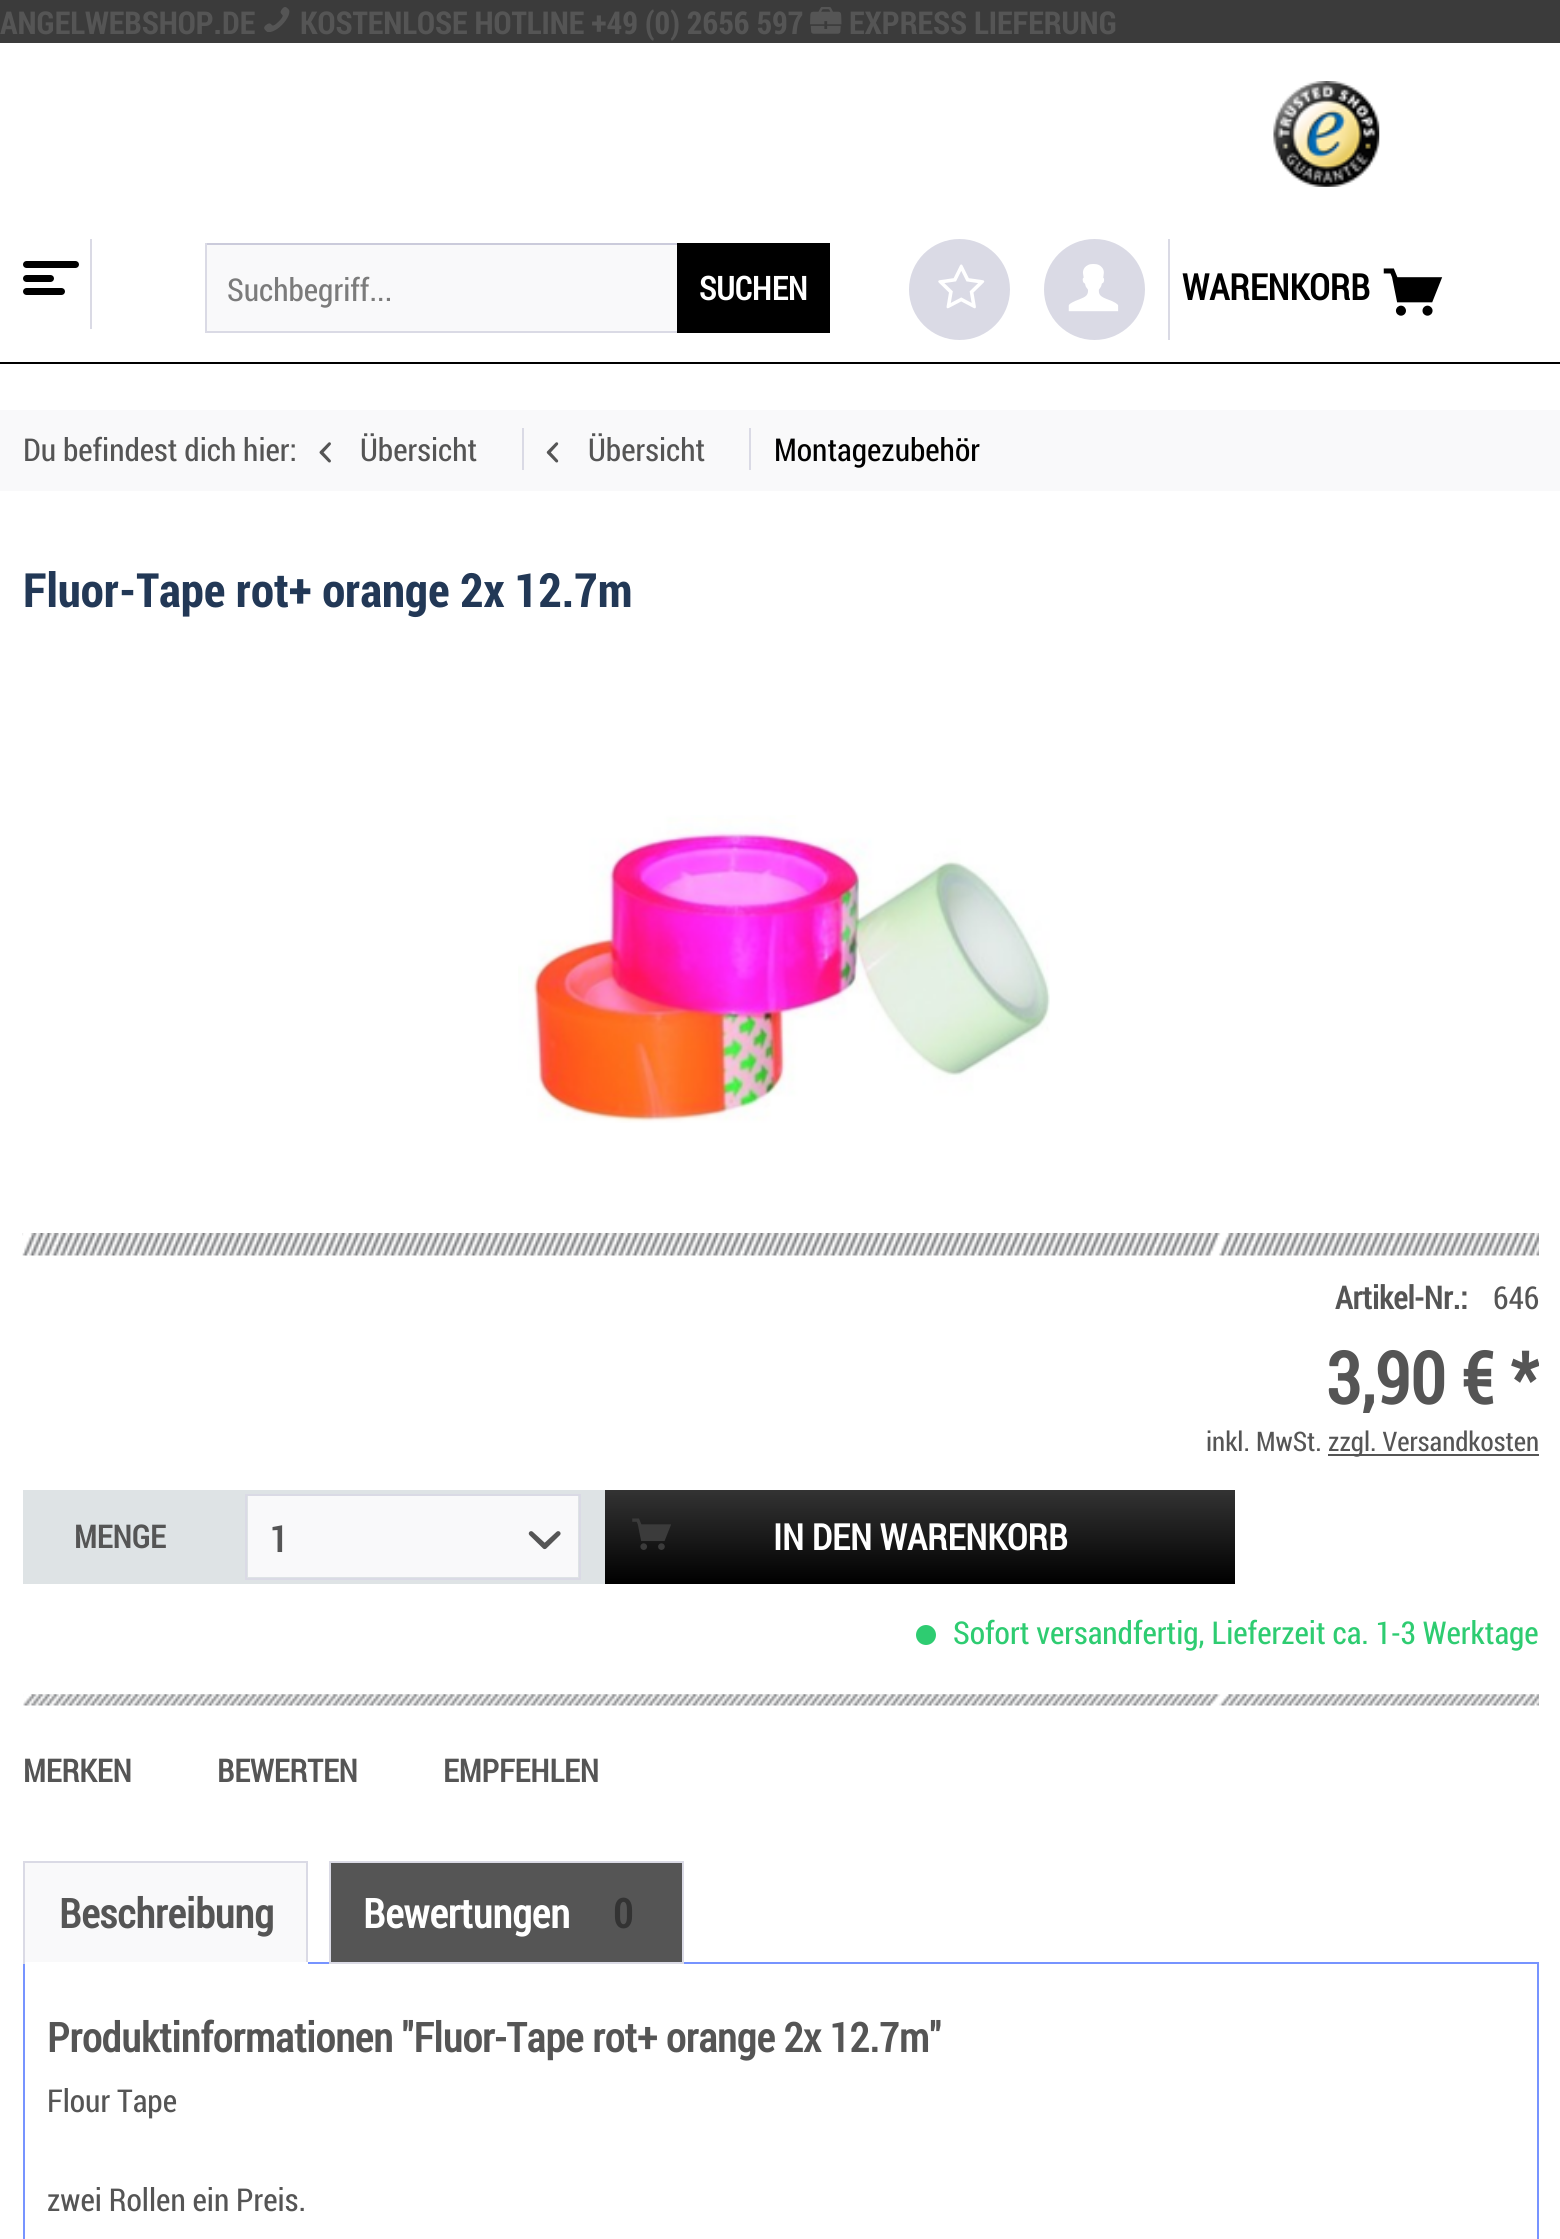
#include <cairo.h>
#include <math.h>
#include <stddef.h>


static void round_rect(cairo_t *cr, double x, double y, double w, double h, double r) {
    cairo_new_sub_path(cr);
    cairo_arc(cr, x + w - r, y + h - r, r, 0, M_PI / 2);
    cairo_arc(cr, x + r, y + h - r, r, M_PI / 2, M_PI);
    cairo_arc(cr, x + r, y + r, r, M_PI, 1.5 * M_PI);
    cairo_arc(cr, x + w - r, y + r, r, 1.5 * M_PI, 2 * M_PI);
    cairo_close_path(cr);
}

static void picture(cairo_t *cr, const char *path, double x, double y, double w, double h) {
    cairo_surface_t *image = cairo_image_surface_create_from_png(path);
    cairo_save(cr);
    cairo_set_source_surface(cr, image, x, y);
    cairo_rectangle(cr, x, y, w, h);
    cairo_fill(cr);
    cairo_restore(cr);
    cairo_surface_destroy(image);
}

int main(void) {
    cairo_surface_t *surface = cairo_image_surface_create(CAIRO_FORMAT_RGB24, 1560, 2239);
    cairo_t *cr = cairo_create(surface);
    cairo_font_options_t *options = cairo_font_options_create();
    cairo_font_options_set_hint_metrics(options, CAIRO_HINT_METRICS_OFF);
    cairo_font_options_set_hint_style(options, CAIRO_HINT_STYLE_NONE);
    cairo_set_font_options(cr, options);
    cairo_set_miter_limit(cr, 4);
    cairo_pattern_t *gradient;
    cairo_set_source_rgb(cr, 1, 1, 1);
    cairo_paint(cr);
    cairo_set_source_rgb(cr, 0, 0, 0);
    cairo_rectangle(cr, 0, 362, 1560, 2);
    cairo_fill(cr);
    cairo_set_source_rgb(cr, 0.231, 0.231, 0.231);
    cairo_rectangle(cr, 0, 0, 1560, 43);
    cairo_fill(cr);
    cairo_select_font_face(cr, "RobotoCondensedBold", CAIRO_FONT_SLANT_NORMAL, CAIRO_FONT_WEIGHT_BOLD);
    cairo_set_font_size(cr, 31.5);
    cairo_set_source_rgb(cr, 0.333, 0.333, 0.333);
    cairo_move_to(cr, 0, 34);
    cairo_show_text(cr, "ANGELWEBSHOP.DE");
    picture(cr, "img1.png", 264, 7, 26, 25);
    cairo_move_to(cr, 300, 34);
    cairo_show_text(cr, "KOSTENLOSE HOTLINE +49 (0) 2656 597");
    picture(cr, "img2.png", 810, 7, 32, 27);
    cairo_move_to(cr, 849, 34);
    cairo_show_text(cr, "EXPRESS LIEFERUNG");
    picture(cr, "img3.png", 1273, 81, 107, 106);
    cairo_set_source_rgb(cr, 0.855, 0.855, 0.898);
    cairo_rectangle(cr, 90, 239, 2, 90);
    cairo_fill(cr);
    cairo_set_source_rgb(cr, 0, 0, 0);
    round_rect(cr, 23, 261, 56, 7, 3.5);
    cairo_fill(cr);
    round_rect(cr, 23, 275, 31, 7, 3.5);
    cairo_fill(cr);
    round_rect(cr, 23, 288, 42, 7, 3.5);
    cairo_fill(cr);
    cairo_set_source_rgb(cr, 0.973, 0.973, 0.98);
    cairo_rectangle(cr, 207, 245, 470, 86);
    cairo_fill(cr);
    cairo_set_source_rgb(cr, 0.796, 0.796, 0.859);
    cairo_rectangle(cr, 205, 243, 472, 2);
    cairo_fill(cr);
    cairo_set_source_rgb(cr, 0.855, 0.855, 0.898);
    cairo_rectangle(cr, 205, 331, 472, 2);
    cairo_fill(cr);
    cairo_rectangle(cr, 205, 243, 2, 90);
    cairo_fill(cr);
    cairo_select_font_face(cr, "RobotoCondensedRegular", CAIRO_FONT_SLANT_NORMAL, CAIRO_FONT_WEIGHT_NORMAL);
    cairo_set_source_rgb(cr, 0.482, 0.482, 0.482);
    cairo_move_to(cr, 227, 301);
    cairo_show_text(cr, "Suchbegriff...");
    cairo_set_source_rgb(cr, 0, 0, 0);
    cairo_rectangle(cr, 677, 243, 153, 90);
    cairo_fill(cr);
    cairo_select_font_face(cr, "RobotoCondensedRegular", CAIRO_FONT_SLANT_NORMAL, CAIRO_FONT_WEIGHT_BOLD);
    cairo_set_font_size(cr, 32.5);
    cairo_set_source_rgb(cr, 1, 1, 1);
    cairo_move_to(cr, 699, 300);
    cairo_show_text(cr, "SUCHEN");
    cairo_set_source_rgb(cr, 0.855, 0.855, 0.898);
    cairo_new_path(cr);
    cairo_arc(cr, 959.5, 289.5, 48, 0, 2 * M_PI);
    cairo_fill_preserve(cr);
    cairo_set_line_width(cr, 5);
    cairo_stroke(cr);
    picture(cr, "img4.png", 938, 264, 47, 45);
    cairo_rectangle(cr, 1168, 239, 2, 101);
    cairo_fill(cr);
    cairo_arc(cr, 1094.5, 289.5, 48, 0, 2 * M_PI);
    cairo_fill_preserve(cr);
    cairo_stroke(cr);
    picture(cr, "img5.png", 1068, 264, 51, 48);
    cairo_set_font_size(cr, 36);
    cairo_set_source_rgb(cr, 0, 0, 0);
    cairo_move_to(cr, 1182, 300);
    cairo_show_text(cr, "WARENKORB");
    picture(cr, "img6.png", 1383, 268, 60, 48);
    cairo_set_source_rgb(cr, 0.973, 0.973, 0.98);
    cairo_rectangle(cr, 0, 410, 1560, 81);
    cairo_fill(cr);
    cairo_select_font_face(cr, "RobotoCondensedRegular", CAIRO_FONT_SLANT_NORMAL, CAIRO_FONT_WEIGHT_NORMAL);
    cairo_set_font_size(cr, 31.5);
    cairo_set_source_rgb(cr, 0.333, 0.333, 0.333);
    cairo_move_to(cr, 23, 461);
    cairo_show_text(cr, "Du befindest dich hier:");
    picture(cr, "img7.png", 319, 442, 12, 21);
    cairo_move_to(cr, 360, 461);
    cairo_show_text(cr, "Übersicht");
    cairo_set_source_rgb(cr, 0.855, 0.855, 0.898);
    cairo_rectangle(cr, 522, 428, 2, 42);
    cairo_fill(cr);
    picture(cr, "img8.png", 546, 442, 13, 21);
    cairo_set_source_rgb(cr, 0.333, 0.333, 0.333);
    cairo_move_to(cr, 588, 461);
    cairo_show_text(cr, "Übersicht");
    cairo_set_source_rgb(cr, 0.855, 0.855, 0.898);
    cairo_rectangle(cr, 749, 428, 2, 42);
    cairo_fill(cr);
    cairo_set_source_rgb(cr, 0, 0, 0);
    cairo_move_to(cr, 774, 461);
    cairo_show_text(cr, "Montagezubehör");
    cairo_select_font_face(cr, "RobotoCondensedBold", CAIRO_FONT_SLANT_NORMAL, CAIRO_FONT_WEIGHT_BOLD);
    cairo_set_font_size(cr, 47.25);
    cairo_set_source_rgb(cr, 0.133, 0.22, 0.337);
    cairo_move_to(cr, 23, 607);
    cairo_show_text(cr, "Fluor-Tape rot+ orange 2x 12.7m");
    picture(cr, "img9.png", 518, 815, 532, 308);
    picture(cr, "img10.png", 22, 1233, 1517, 23);
    cairo_select_font_face(cr, "RobotoCondensedRegular", CAIRO_FONT_SLANT_NORMAL, CAIRO_FONT_WEIGHT_BOLD);
    cairo_set_font_size(cr, 31.5);
    cairo_set_source_rgb(cr, 0.333, 0.333, 0.333);
    cairo_move_to(cr, 1335, 1309);
    cairo_show_text(cr, "Artikel-Nr.:");
    cairo_select_font_face(cr, "RobotoCondensedRegular", CAIRO_FONT_SLANT_NORMAL, CAIRO_FONT_WEIGHT_NORMAL);
    cairo_move_to(cr, 1493, 1309);
    cairo_show_text(cr, "646");
    cairo_save(cr);
    cairo_rectangle(cr, 23, 1341, 1516, 72);
    cairo_clip(cr);
    cairo_select_font_face(cr, "RobotoCondensedRegular", CAIRO_FONT_SLANT_NORMAL, CAIRO_FONT_WEIGHT_BOLD);
    cairo_set_font_size(cr, 72);
    cairo_move_to(cr, 1326, 1404);
    cairo_show_text(cr, "3,90 € *");
    cairo_restore(cr);
    cairo_set_font_size(cr, 27);
    cairo_move_to(cr, 1206, 1451);
    cairo_show_text(cr, "inkl. MwSt.");
    cairo_rectangle(cr, 1328, 1454, 211, 2);
    cairo_fill(cr);
    cairo_move_to(cr, 1328, 1451);
    cairo_show_text(cr, "zzgl. Versandkosten");
    cairo_set_source_rgb(cr, 0.871, 0.89, 0.898);
    cairo_rectangle(cr, 23, 1490, 582, 94);
    cairo_fill(cr);
    cairo_select_font_face(cr, "RobotoCondensedRegular", CAIRO_FONT_SLANT_NORMAL, CAIRO_FONT_WEIGHT_BOLD);
    cairo_set_font_size(cr, 31.5);
    cairo_set_source_rgb(cr, 0.333, 0.333, 0.333);
    cairo_move_to(cr, 74, 1548);
    cairo_show_text(cr, "MENGE");
    cairo_set_source_rgb(cr, 0.973, 0.973, 0.98);
    cairo_rectangle(cr, 248, 1496, 330, 81);
    cairo_fill(cr);
    cairo_rectangle(cr, 246, 1495, 334, 84);
    cairo_set_source_rgb(cr, 0.855, 0.855, 0.898);
    cairo_set_line_width(cr, 2);
    cairo_stroke(cr);
    cairo_set_font_size(cr, 36);
    cairo_set_source_rgb(cr, 0.333, 0.333, 0.333);
    cairo_move_to(cr, 270, 1552);
    cairo_show_text(cr, "1");
    picture(cr, "img11.png", 528, 1531, 33, 19);
    gradient = cairo_pattern_create_linear(920, 1490, 920, 1584);
    cairo_pattern_add_color_stop_rgba(gradient, 0, 0.2, 0.2, 0.2, 1);
    cairo_pattern_add_color_stop_rgba(gradient, 1, 0, 0, 0, 1);
    cairo_set_source(cr, gradient);
    cairo_pattern_destroy(gradient);
    cairo_rectangle(cr, 605, 1490, 630, 94);
    cairo_fill(cr);
    picture(cr, "img12.png", 632, 1518, 39, 32);
    cairo_set_source_rgb(cr, 1, 1, 1);
    cairo_move_to(cr, 773, 1550);
    cairo_show_text(cr, "IN DEN WARENKORB");
    cairo_set_source_rgb(cr, 0.18, 0.8, 0.443);
    cairo_new_path(cr);
    cairo_arc(cr, 926, 1635, 10, 0, 2 * M_PI);
    cairo_fill(cr);
    cairo_select_font_face(cr, "RobotoCondensedRegular", CAIRO_FONT_SLANT_NORMAL, CAIRO_FONT_WEIGHT_NORMAL);
    cairo_set_font_size(cr, 31.5);
    cairo_move_to(cr, 953, 1644);
    cairo_show_text(cr, "Sofort versandfertig, Lieferzeit ca. 1-3 Werktage");
    picture(cr, "img13.png", 23, 1694, 1516, 12);
    cairo_select_font_face(cr, "RobotoCondensedRegular", CAIRO_FONT_SLANT_NORMAL, CAIRO_FONT_WEIGHT_BOLD);
    cairo_set_source_rgb(cr, 0.333, 0.333, 0.333);
    cairo_move_to(cr, 23, 1782);
    cairo_show_text(cr, "MERKEN");
    cairo_move_to(cr, 217, 1782);
    cairo_show_text(cr, "BEWERTEN");
    cairo_move_to(cr, 443, 1782);
    cairo_show_text(cr, "EMPFEHLEN");
    cairo_set_source_rgb(cr, 0.973, 0.973, 0.98);
    cairo_rectangle(cr, 25, 1863, 281, 99);
    cairo_fill(cr);
    cairo_set_source_rgb(cr, 0.855, 0.855, 0.898);
    cairo_rectangle(cr, 23, 1861, 285, 2);
    cairo_fill(cr);
    cairo_rectangle(cr, 24, 1963, 1514, 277);
    cairo_set_source_rgb(cr, 0.467, 0.58, 1);
    cairo_stroke(cr);
    cairo_set_source_rgb(cr, 0.855, 0.855, 0.898);
    cairo_rectangle(cr, 306, 1861, 2, 103);
    cairo_fill(cr);
    cairo_set_source_rgb(cr, 1, 1, 1);
    cairo_rectangle(cr, 23, 1962, 285, 2);
    cairo_fill(cr);
    cairo_set_source_rgb(cr, 0.855, 0.855, 0.898);
    cairo_rectangle(cr, 23, 1861, 2, 103);
    cairo_fill(cr);
    cairo_set_font_size(cr, 40.5);
    cairo_set_source_rgb(cr, 0.333, 0.333, 0.333);
    cairo_move_to(cr, 59, 1928);
    cairo_show_text(cr, "Beschreibung");
    cairo_rectangle(cr, 330, 1862, 353, 101);
    cairo_fill_preserve(cr);
    cairo_set_source_rgb(cr, 0.855, 0.855, 0.898);
    cairo_stroke(cr);
    cairo_set_source_rgb(cr, 1, 1, 1);
    cairo_move_to(cr, 363, 1928);
    cairo_show_text(cr, "Bewertungen");
    cairo_set_source_rgb(cr, 0.2, 0.2, 0.2);
    cairo_move_to(cr, 613, 1928);
    cairo_show_text(cr, "0");
    cairo_set_source_rgb(cr, 0.333, 0.333, 0.333);
    cairo_move_to(cr, 47, 2052);
    cairo_show_text(cr, "Produktinformationen \"Fluor-Tape rot+ orange 2x 12.7m\"");
    cairo_select_font_face(cr, "RobotoCondensedRegular", CAIRO_FONT_SLANT_NORMAL, CAIRO_FONT_WEIGHT_NORMAL);
    cairo_set_font_size(cr, 31.5);
    cairo_move_to(cr, 47, 2112);
    cairo_show_text(cr, "Flour Tape");
    cairo_move_to(cr, 47, 2211);
    cairo_show_text(cr, "zwei Rollen ein Preis.");
    cairo_surface_write_to_png(surface, "page.png");
    cairo_font_options_destroy(options);
    cairo_destroy(cr);
    cairo_surface_destroy(surface);
    return 0;
}
